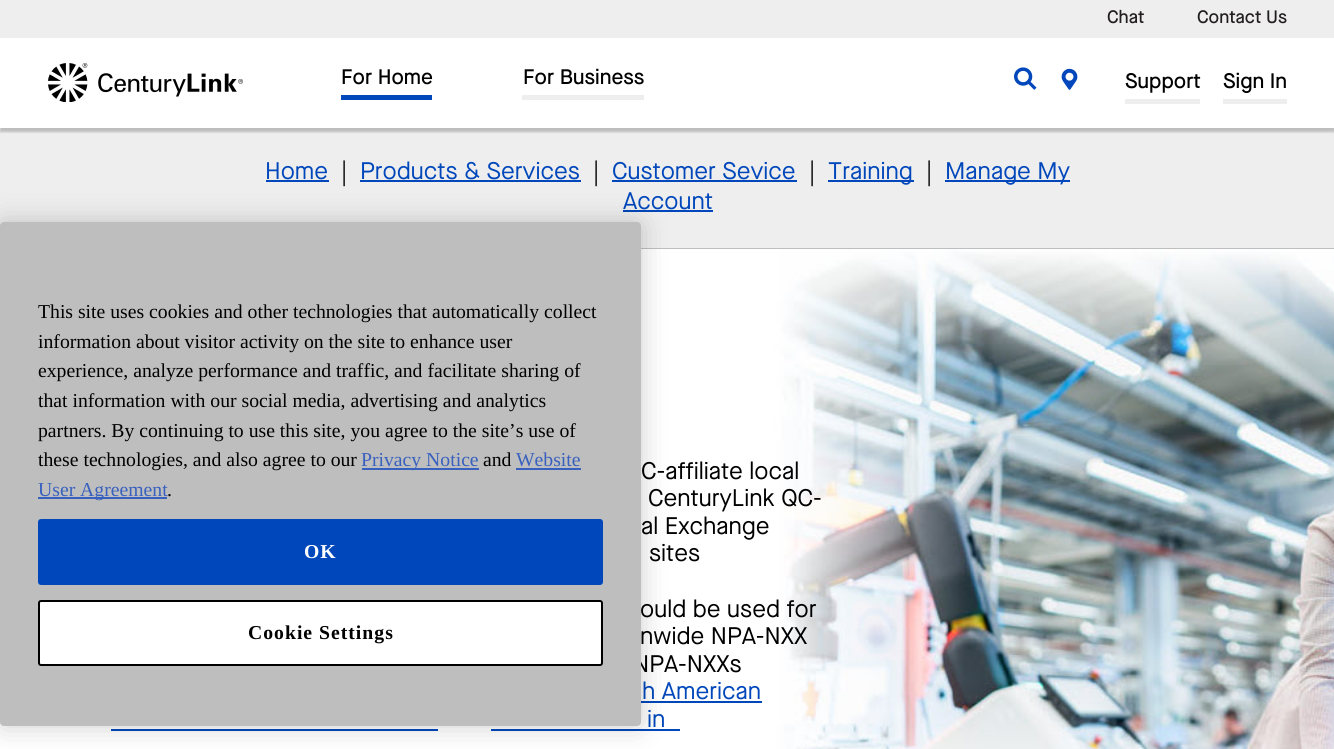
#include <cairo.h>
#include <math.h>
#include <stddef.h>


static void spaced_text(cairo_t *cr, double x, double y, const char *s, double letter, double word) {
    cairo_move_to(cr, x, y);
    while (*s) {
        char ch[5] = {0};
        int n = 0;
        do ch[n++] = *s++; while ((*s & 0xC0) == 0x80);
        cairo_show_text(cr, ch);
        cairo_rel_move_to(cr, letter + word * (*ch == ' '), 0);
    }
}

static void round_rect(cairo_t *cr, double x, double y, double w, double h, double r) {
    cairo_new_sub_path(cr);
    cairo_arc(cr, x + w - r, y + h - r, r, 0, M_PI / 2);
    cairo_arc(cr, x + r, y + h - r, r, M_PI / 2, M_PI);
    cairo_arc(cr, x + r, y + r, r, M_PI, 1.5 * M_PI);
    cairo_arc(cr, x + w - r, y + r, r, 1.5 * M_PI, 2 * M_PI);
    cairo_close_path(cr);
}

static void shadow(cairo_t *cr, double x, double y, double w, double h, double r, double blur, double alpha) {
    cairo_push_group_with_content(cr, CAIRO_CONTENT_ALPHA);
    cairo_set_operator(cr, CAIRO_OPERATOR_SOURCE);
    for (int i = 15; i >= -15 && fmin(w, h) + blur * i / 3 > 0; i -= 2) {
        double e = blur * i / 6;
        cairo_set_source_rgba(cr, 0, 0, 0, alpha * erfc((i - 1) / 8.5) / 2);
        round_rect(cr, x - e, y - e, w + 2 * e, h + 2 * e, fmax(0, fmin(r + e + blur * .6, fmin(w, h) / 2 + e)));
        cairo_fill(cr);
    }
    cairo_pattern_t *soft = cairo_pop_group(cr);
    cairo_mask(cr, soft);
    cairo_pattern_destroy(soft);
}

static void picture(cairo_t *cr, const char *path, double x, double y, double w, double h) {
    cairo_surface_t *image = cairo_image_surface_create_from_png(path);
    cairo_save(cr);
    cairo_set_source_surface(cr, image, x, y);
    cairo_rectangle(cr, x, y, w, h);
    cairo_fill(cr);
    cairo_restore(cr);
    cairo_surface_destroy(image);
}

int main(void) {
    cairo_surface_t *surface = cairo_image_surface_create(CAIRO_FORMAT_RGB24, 1334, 749);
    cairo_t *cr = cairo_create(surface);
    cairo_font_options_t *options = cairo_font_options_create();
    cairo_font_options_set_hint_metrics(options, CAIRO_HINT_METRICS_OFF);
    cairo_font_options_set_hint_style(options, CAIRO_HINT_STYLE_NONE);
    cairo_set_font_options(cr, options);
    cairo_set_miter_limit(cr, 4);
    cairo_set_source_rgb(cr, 0.933, 0.933, 0.933);
    cairo_paint(cr);
    cairo_select_font_face(cr, "Maison Neue Medium", CAIRO_FONT_SLANT_NORMAL, CAIRO_FONT_WEIGHT_NORMAL);
    cairo_set_font_size(cr, 18);
    cairo_set_source_rgb(cr, 0.137, 0.122, 0.125);
    cairo_move_to(cr, 1107, 23);
    cairo_show_text(cr, "Chat");
    cairo_move_to(cr, 1197, 23);
    cairo_show_text(cr, "Contact Us");
    cairo_set_source_rgb(cr, 0, 0, 0);
    shadow(cr, 0, 42, 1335, 90, 0, 1, 0.2);
    cairo_set_source_rgb(cr, 1, 1, 1);
    cairo_rectangle(cr, 0, 38, 1334, 90);
    cairo_fill(cr);
    picture(cr, "img1.png", 48, 63, 195, 39);
    cairo_set_font_size(cr, 21);
    cairo_set_source_rgb(cr, 0, 0, 0);
    cairo_move_to(cr, 341, 84);
    cairo_show_text(cr, "For Home");
    cairo_set_source_rgb(cr, 0, 0.278, 0.733);
    cairo_rectangle(cr, 341, 95, 91, 5);
    cairo_fill(cr);
    cairo_set_source_rgb(cr, 0, 0, 0);
    cairo_move_to(cr, 523, 84);
    cairo_show_text(cr, "For Business");
    cairo_set_source_rgb(cr, 0.933, 0.933, 0.933);
    cairo_rectangle(cr, 522, 95, 122, 5);
    cairo_fill(cr);
    picture(cr, "img2.png", 1014, 67, 23, 23);
    picture(cr, "img3.png", 1061, 68, 17, 22);
    cairo_set_source_rgb(cr, 0, 0, 0);
    cairo_move_to(cr, 1125, 88);
    cairo_show_text(cr, "Support");
    cairo_set_source_rgb(cr, 0.933, 0.933, 0.933);
    cairo_rectangle(cr, 1125, 99, 75, 5);
    cairo_fill(cr);
    cairo_set_source_rgb(cr, 0, 0, 0);
    cairo_move_to(cr, 1223, 88);
    cairo_show_text(cr, "Sign In");
    cairo_set_source_rgb(cr, 0.933, 0.933, 0.933);
    cairo_rectangle(cr, 1223, 99, 64, 5);
    cairo_fill(cr);
    cairo_select_font_face(cr, "Maison Neue", CAIRO_FONT_SLANT_NORMAL, CAIRO_FONT_WEIGHT_NORMAL);
    cairo_set_font_size(cr, 24);
    cairo_set_source_rgb(cr, 0, 0.278, 0.733);
    cairo_move_to(cr, 265, 179);
    cairo_show_text(cr, "Home");
    cairo_rectangle(cr, 266, 180, 63, 2);
    cairo_fill(cr);
    cairo_set_source_rgb(cr, 0, 0, 0);
    cairo_move_to(cr, 341, 179);
    cairo_show_text(cr, "|");
    cairo_set_source_rgb(cr, 0, 0.278, 0.733);
    cairo_move_to(cr, 360, 179);
    cairo_show_text(cr, "Products & Services");
    cairo_rectangle(cr, 360, 180, 221, 2);
    cairo_fill(cr);
    cairo_set_source_rgb(cr, 0, 0, 0);
    cairo_move_to(cr, 593, 179);
    cairo_show_text(cr, "|");
    cairo_set_source_rgb(cr, 0, 0.278, 0.733);
    cairo_move_to(cr, 612, 179);
    cairo_show_text(cr, "Customer Sevice");
    cairo_rectangle(cr, 612, 180, 185, 2);
    cairo_fill(cr);
    cairo_set_source_rgb(cr, 0, 0, 0);
    cairo_move_to(cr, 809, 179);
    cairo_show_text(cr, "|");
    cairo_set_source_rgb(cr, 0, 0.278, 0.733);
    cairo_rectangle(cr, 828, 180, 86, 2);
    cairo_fill(cr);
    cairo_move_to(cr, 828, 179);
    cairo_show_text(cr, "Training");
    cairo_set_source_rgb(cr, 0, 0, 0);
    cairo_move_to(cr, 926, 179);
    cairo_show_text(cr, "|");
    cairo_set_source_rgb(cr, 0, 0.278, 0.733);
    cairo_rectangle(cr, 945, 180, 125, 2);
    cairo_fill(cr);
    cairo_move_to(cr, 945, 179);
    cairo_show_text(cr, "Manage My");
    cairo_move_to(cr, 623, 209);
    cairo_show_text(cr, "Account");
    cairo_rectangle(cr, 623, 210, 90, 2);
    cairo_fill(cr);
    cairo_set_source_rgb(cr, 0.745, 0.745, 0.745);
    cairo_rectangle(cr, 641, 248, 693, 1);
    cairo_fill(cr);
    picture(cr, "img4.png", 0, 249, 1334, 500);
    cairo_set_source_rgb(cr, 0, 0, 0);
    cairo_move_to(cr, 641, 479);
    cairo_show_text(cr, "C-affiliate local");
    cairo_move_to(cr, 648, 506);
    cairo_show_text(cr, "CenturyLink QC-");
    cairo_move_to(cr, 641, 534);
    cairo_show_text(cr, "al Exchange");
    cairo_move_to(cr, 649, 561);
    cairo_show_text(cr, "sites");
    cairo_move_to(cr, 640, 617);
    cairo_show_text(cr, "ould be used for");
    cairo_move_to(cr, 640, 644);
    cairo_show_text(cr, "nwide NPA-NXX");
    cairo_move_to(cr, 633, 672);
    cairo_show_text(cr, "NPA-NXXs");
    cairo_set_source_rgb(cr, 0, 0.278, 0.733);
    cairo_move_to(cr, 642, 699);
    cairo_show_text(cr, "h American");
    cairo_rectangle(cr, 641, 701, 121, 2);
    cairo_fill(cr);
    cairo_rectangle(cr, 111, 729, 327, 2);
    cairo_fill(cr);
    cairo_move_to(cr, 647, 727);
    cairo_show_text(cr, "in");
    cairo_rectangle(cr, 491, 729, 189, 2);
    cairo_fill(cr);
    cairo_set_source_rgb(cr, 0, 0, 0);
    shadow(cr, 0, 222, 641, 504, 4, 13.5, 0.2);
    cairo_set_source_rgb(cr, 0.745, 0.745, 0.745);
    round_rect(cr, 0, 222, 641, 504, 4);
    cairo_fill(cr);
    cairo_select_font_face(cr, "Liberation Serif", CAIRO_FONT_SLANT_NORMAL, CAIRO_FONT_WEIGHT_NORMAL);
    cairo_set_font_size(cr, 19.7);
    cairo_set_source_rgb(cr, 0, 0, 0);
    cairo_move_to(cr, 38, 318);
    cairo_show_text(cr, "This site uses cookies and other technologies that automatically collect");
    cairo_move_to(cr, 38, 348);
    cairo_show_text(cr, "information about visitor activity on the site to enhance user");
    cairo_move_to(cr, 38, 377);
    cairo_show_text(cr, "experience, analyze performance and traffic, and facilitate sharing of");
    cairo_move_to(cr, 38, 407);
    cairo_show_text(cr, "that information with our social media, advertising and analytics");
    cairo_move_to(cr, 38, 437);
    cairo_show_text(cr, "partners. By continuing to use this site, you agree to the site’s use of");
    cairo_move_to(cr, 38, 466);
    cairo_show_text(cr, "these technologies, and also agree to our");
    cairo_set_source_rgb(cr, 0.22, 0.376, 0.745);
    cairo_rectangle(cr, 362, 468, 117, 2);
    cairo_fill(cr);
    cairo_move_to(cr, 361, 466);
    cairo_show_text(cr, "Privacy Notice");
    cairo_set_source_rgb(cr, 0, 0, 0);
    cairo_move_to(cr, 483, 466);
    cairo_show_text(cr, "and");
    cairo_set_source_rgb(cr, 0.22, 0.376, 0.745);
    cairo_move_to(cr, 516, 466);
    cairo_show_text(cr, "Website");
    cairo_rectangle(cr, 516, 468, 65, 2);
    cairo_fill(cr);
    cairo_rectangle(cr, 38, 497, 129, 2);
    cairo_fill(cr);
    cairo_move_to(cr, 38, 496);
    cairo_show_text(cr, "User Agreement");
    cairo_set_source_rgb(cr, 0, 0, 0);
    cairo_move_to(cr, 167, 496);
    cairo_show_text(cr, ".");
    cairo_set_source_rgb(cr, 0, 0.278, 0.733);
    round_rect(cr, 39, 520, 563, 64, 2);
    cairo_fill_preserve(cr);
    cairo_stroke(cr);
    cairo_select_font_face(cr, "Liberation Serif", CAIRO_FONT_SLANT_NORMAL, CAIRO_FONT_WEIGHT_BOLD);
    cairo_set_source_rgb(cr, 1, 1, 1);
    spaced_text(cr, 304, 558, "OK", 1, 0);
    round_rect(cr, 39, 601, 563, 64, 2);
    cairo_fill_preserve(cr);
    cairo_set_source_rgb(cr, 0, 0, 0);
    cairo_stroke(cr);
    spaced_text(cr, 248, 639, "Cookie Settings", 1, 0);
    cairo_surface_write_to_png(surface, "page.png");
    cairo_font_options_destroy(options);
    cairo_destroy(cr);
    cairo_surface_destroy(surface);
    return 0;
}
